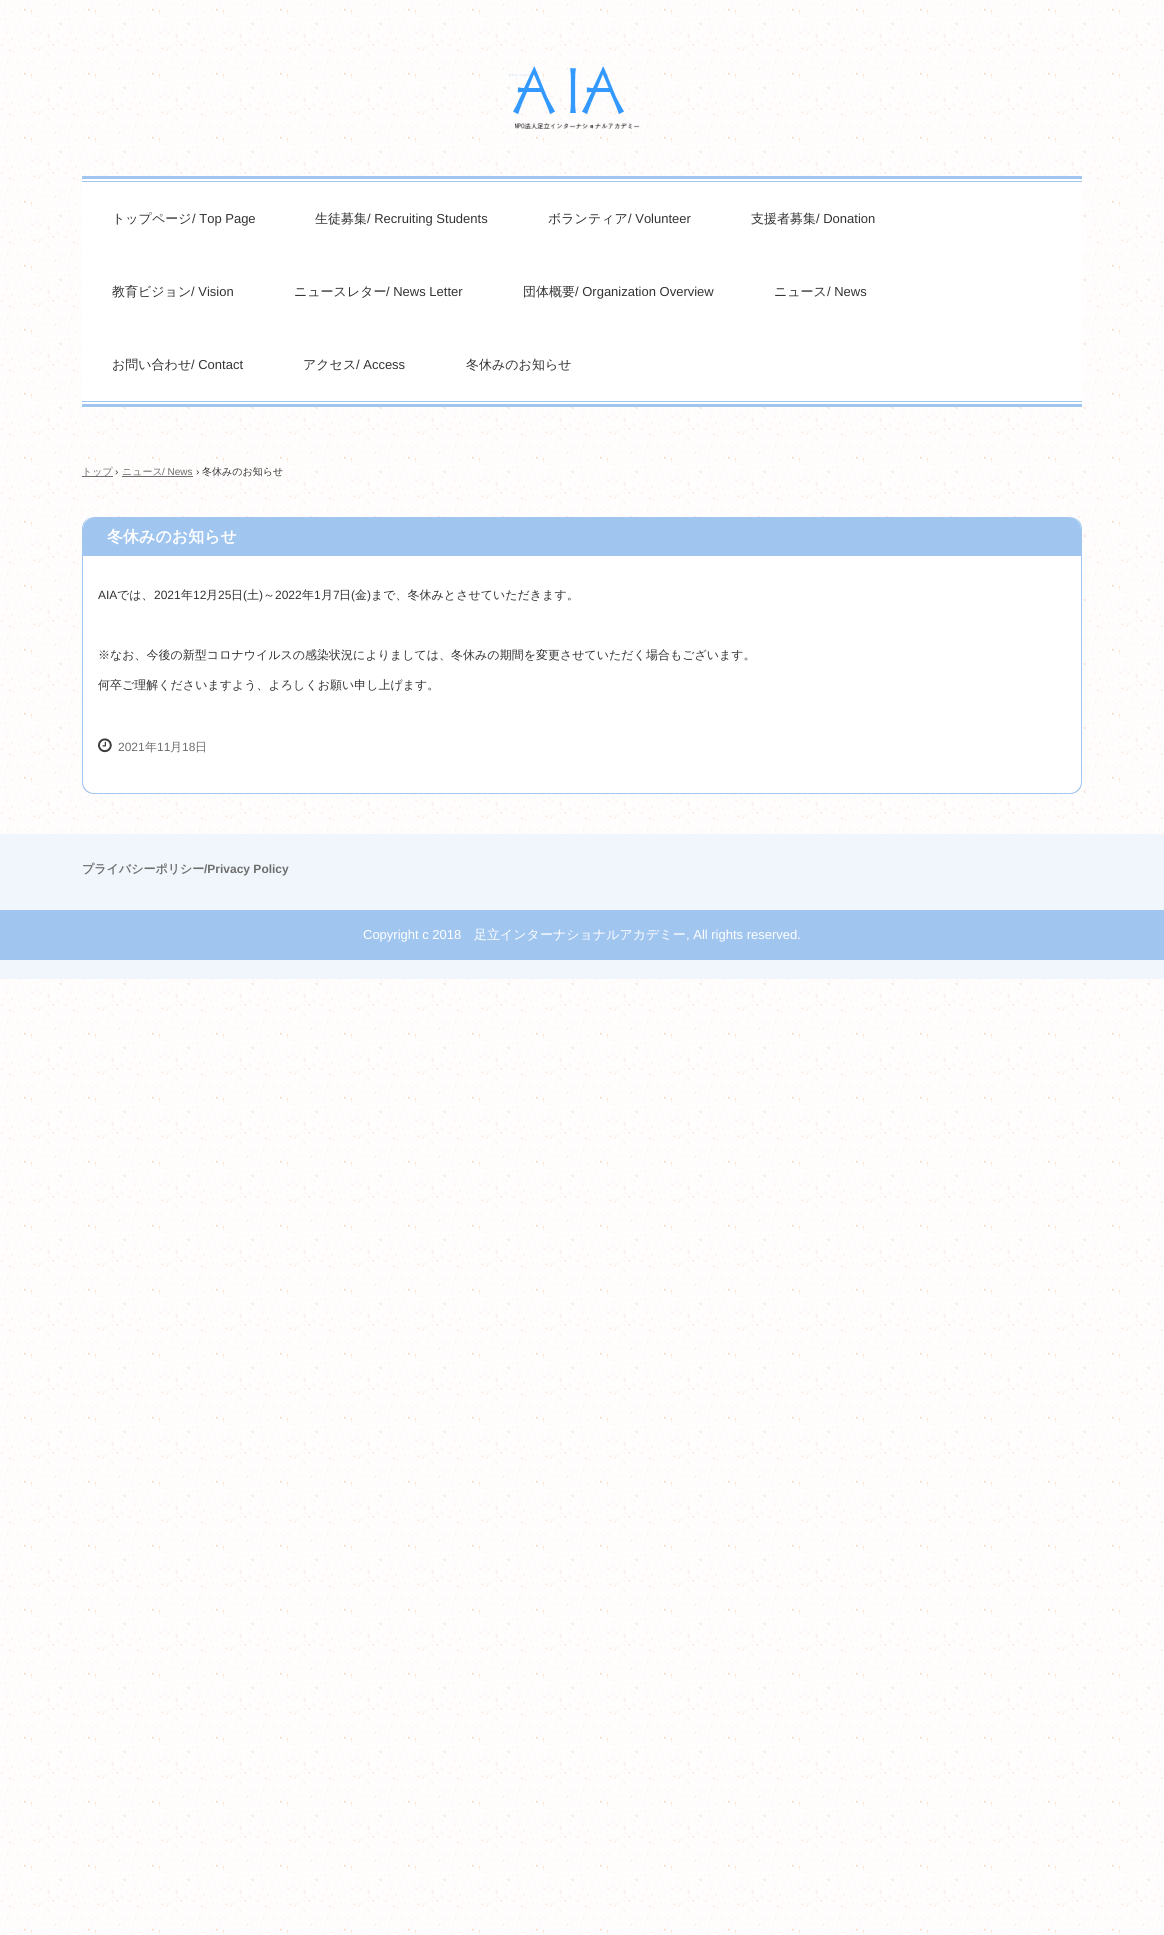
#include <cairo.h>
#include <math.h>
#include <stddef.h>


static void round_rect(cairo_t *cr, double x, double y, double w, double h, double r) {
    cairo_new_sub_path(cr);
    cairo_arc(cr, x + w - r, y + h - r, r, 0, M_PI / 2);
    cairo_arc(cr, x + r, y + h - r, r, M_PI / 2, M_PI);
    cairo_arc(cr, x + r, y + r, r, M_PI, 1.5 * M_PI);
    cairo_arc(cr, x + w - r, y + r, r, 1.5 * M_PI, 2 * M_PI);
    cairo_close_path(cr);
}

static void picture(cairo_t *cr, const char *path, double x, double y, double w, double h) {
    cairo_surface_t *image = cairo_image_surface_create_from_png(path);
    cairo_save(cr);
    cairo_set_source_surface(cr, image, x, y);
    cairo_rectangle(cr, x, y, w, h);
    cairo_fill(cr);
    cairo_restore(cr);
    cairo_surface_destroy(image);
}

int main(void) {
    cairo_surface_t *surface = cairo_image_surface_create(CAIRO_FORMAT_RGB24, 1164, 1935);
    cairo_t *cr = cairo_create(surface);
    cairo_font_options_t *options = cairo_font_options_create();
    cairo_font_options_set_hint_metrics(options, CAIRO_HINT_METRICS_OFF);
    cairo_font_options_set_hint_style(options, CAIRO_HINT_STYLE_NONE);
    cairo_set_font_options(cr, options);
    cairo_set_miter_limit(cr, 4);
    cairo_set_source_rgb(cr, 1, 1, 1);
    cairo_paint(cr);
    picture(cr, "img1.png", 0, 0, 1164, 1935);
    picture(cr, "img2.png", 509, 66, 130, 63);
    cairo_set_source_rgb(cr, 1, 1, 1);
    cairo_rectangle(cr, 82, 179, 1000, 225);
    cairo_fill(cr);
    cairo_set_source_rgb(cr, 0.627, 0.773, 0.937);
    cairo_rectangle(cr, 82, 176, 1000, 3);
    cairo_fill(cr);
    cairo_rectangle(cr, 82, 404, 1000, 3);
    cairo_fill(cr);
    cairo_rectangle(cr, 82, 181, 1000, 1);
    cairo_fill(cr);
    cairo_rectangle(cr, 82, 401, 1000, 1);
    cairo_fill(cr);
    cairo_select_font_face(cr, "WenQuanYi Zen Hei Medium", CAIRO_FONT_SLANT_NORMAL, CAIRO_FONT_WEIGHT_NORMAL);
    cairo_set_font_size(cr, 13);
    cairo_set_source_rgb(cr, 0.2, 0.2, 0.2);
    cairo_move_to(cr, 112, 223);
    cairo_show_text(cr, "トップページ");
    cairo_select_font_face(cr, "Liberation Sans", CAIRO_FONT_SLANT_NORMAL, CAIRO_FONT_WEIGHT_NORMAL);
    cairo_move_to(cr, 192, 223);
    cairo_show_text(cr, "/ Top Page");
    cairo_select_font_face(cr, "WenQuanYi Zen Hei Medium", CAIRO_FONT_SLANT_NORMAL, CAIRO_FONT_WEIGHT_NORMAL);
    cairo_move_to(cr, 315, 223);
    cairo_show_text(cr, "生徒募集");
    cairo_select_font_face(cr, "Liberation Sans", CAIRO_FONT_SLANT_NORMAL, CAIRO_FONT_WEIGHT_NORMAL);
    cairo_move_to(cr, 367, 223);
    cairo_show_text(cr, "/ Recruiting Students");
    cairo_select_font_face(cr, "WenQuanYi Zen Hei Medium", CAIRO_FONT_SLANT_NORMAL, CAIRO_FONT_WEIGHT_NORMAL);
    cairo_move_to(cr, 548, 223);
    cairo_show_text(cr, "ボランティア");
    cairo_select_font_face(cr, "Liberation Sans", CAIRO_FONT_SLANT_NORMAL, CAIRO_FONT_WEIGHT_NORMAL);
    cairo_move_to(cr, 628, 223);
    cairo_show_text(cr, "/ Volunteer");
    cairo_select_font_face(cr, "WenQuanYi Zen Hei Medium", CAIRO_FONT_SLANT_NORMAL, CAIRO_FONT_WEIGHT_NORMAL);
    cairo_move_to(cr, 751, 223);
    cairo_show_text(cr, "支援者募集");
    cairo_select_font_face(cr, "Liberation Sans", CAIRO_FONT_SLANT_NORMAL, CAIRO_FONT_WEIGHT_NORMAL);
    cairo_move_to(cr, 816, 223);
    cairo_show_text(cr, "/ Donation");
    cairo_select_font_face(cr, "WenQuanYi Zen Hei Medium", CAIRO_FONT_SLANT_NORMAL, CAIRO_FONT_WEIGHT_NORMAL);
    cairo_move_to(cr, 112, 296);
    cairo_show_text(cr, "教育ビジョン");
    cairo_select_font_face(cr, "Liberation Sans", CAIRO_FONT_SLANT_NORMAL, CAIRO_FONT_WEIGHT_NORMAL);
    cairo_move_to(cr, 191, 296);
    cairo_show_text(cr, "/ Vision");
    cairo_select_font_face(cr, "WenQuanYi Zen Hei Medium", CAIRO_FONT_SLANT_NORMAL, CAIRO_FONT_WEIGHT_NORMAL);
    cairo_move_to(cr, 294, 296);
    cairo_show_text(cr, "ニュースレター");
    cairo_select_font_face(cr, "Liberation Sans", CAIRO_FONT_SLANT_NORMAL, CAIRO_FONT_WEIGHT_NORMAL);
    cairo_move_to(cr, 386, 296);
    cairo_show_text(cr, "/ News Letter");
    cairo_select_font_face(cr, "WenQuanYi Zen Hei Medium", CAIRO_FONT_SLANT_NORMAL, CAIRO_FONT_WEIGHT_NORMAL);
    cairo_move_to(cr, 523, 296);
    cairo_show_text(cr, "団体概要");
    cairo_select_font_face(cr, "Liberation Sans", CAIRO_FONT_SLANT_NORMAL, CAIRO_FONT_WEIGHT_NORMAL);
    cairo_move_to(cr, 575, 296);
    cairo_show_text(cr, "/ Organization Overview");
    cairo_select_font_face(cr, "WenQuanYi Zen Hei Medium", CAIRO_FONT_SLANT_NORMAL, CAIRO_FONT_WEIGHT_NORMAL);
    cairo_move_to(cr, 774, 296);
    cairo_show_text(cr, "ニュース");
    cairo_select_font_face(cr, "Liberation Sans", CAIRO_FONT_SLANT_NORMAL, CAIRO_FONT_WEIGHT_NORMAL);
    cairo_move_to(cr, 827, 296);
    cairo_show_text(cr, "/ News");
    cairo_select_font_face(cr, "WenQuanYi Zen Hei Medium", CAIRO_FONT_SLANT_NORMAL, CAIRO_FONT_WEIGHT_NORMAL);
    cairo_move_to(cr, 112, 369);
    cairo_show_text(cr, "お問い合わせ");
    cairo_select_font_face(cr, "Liberation Sans", CAIRO_FONT_SLANT_NORMAL, CAIRO_FONT_WEIGHT_NORMAL);
    cairo_move_to(cr, 191, 369);
    cairo_show_text(cr, "/ Contact");
    cairo_select_font_face(cr, "WenQuanYi Zen Hei Medium", CAIRO_FONT_SLANT_NORMAL, CAIRO_FONT_WEIGHT_NORMAL);
    cairo_move_to(cr, 303, 369);
    cairo_show_text(cr, "アクセス");
    cairo_select_font_face(cr, "Liberation Sans", CAIRO_FONT_SLANT_NORMAL, CAIRO_FONT_WEIGHT_NORMAL);
    cairo_move_to(cr, 356, 369);
    cairo_show_text(cr, "/ Access");
    cairo_select_font_face(cr, "WenQuanYi Zen Hei Medium", CAIRO_FONT_SLANT_NORMAL, CAIRO_FONT_WEIGHT_NORMAL);
    cairo_move_to(cr, 466, 369);
    cairo_show_text(cr, "冬休みのお知らせ");
    cairo_set_source_rgb(cr, 0.431, 0.431, 0.431);
    cairo_rectangle(cr, 82, 476, 31, 1);
    cairo_fill(cr);
    cairo_set_font_size(cr, 10);
    cairo_move_to(cr, 82, 475);
    cairo_show_text(cr, "トップ");
    cairo_select_font_face(cr, "Liberation Sans", CAIRO_FONT_SLANT_NORMAL, CAIRO_FONT_WEIGHT_NORMAL);
    cairo_set_source_rgb(cr, 0.2, 0.2, 0.2);
    cairo_move_to(cr, 115, 475);
    cairo_show_text(cr, "›");
    cairo_select_font_face(cr, "WenQuanYi Zen Hei Medium", CAIRO_FONT_SLANT_NORMAL, CAIRO_FONT_WEIGHT_NORMAL);
    cairo_set_source_rgb(cr, 0.431, 0.431, 0.431);
    cairo_move_to(cr, 122, 475);
    cairo_show_text(cr, "ニュース");
    cairo_rectangle(cr, 122, 476, 71, 1);
    cairo_fill(cr);
    cairo_select_font_face(cr, "Liberation Sans", CAIRO_FONT_SLANT_NORMAL, CAIRO_FONT_WEIGHT_NORMAL);
    cairo_move_to(cr, 162, 475);
    cairo_show_text(cr, "/ News");
    cairo_set_source_rgb(cr, 0.2, 0.2, 0.2);
    cairo_move_to(cr, 196, 475);
    cairo_show_text(cr, "›");
    cairo_select_font_face(cr, "WenQuanYi Zen Hei Medium", CAIRO_FONT_SLANT_NORMAL, CAIRO_FONT_WEIGHT_NORMAL);
    cairo_move_to(cr, 202, 475);
    cairo_show_text(cr, "冬休みのお知らせ");
    cairo_set_source_rgb(cr, 1, 1, 1);
    round_rect(cr, 82, 517, 1000, 277, 12);
    cairo_fill(cr);
    cairo_set_source_rgb(cr, 0.627, 0.773, 0.937);
    cairo_set_fill_rule(cr, CAIRO_FILL_RULE_EVEN_ODD);
    cairo_new_path(cr);
    cairo_move_to(cr, 94, 517);
    cairo_line_to(cr, 1070, 517);
    cairo_curve_to(cr, 1077, 517, 1082, 522, 1082, 529);
    cairo_line_to(cr, 1082, 782);
    cairo_curve_to(cr, 1082, 789, 1077, 794, 1070, 794);
    cairo_line_to(cr, 94, 794);
    cairo_curve_to(cr, 87, 794, 82, 789, 82, 782);
    cairo_line_to(cr, 82, 529);
    cairo_curve_to(cr, 82, 522, 87, 517, 94, 517);
    cairo_close_path(cr);
    cairo_move_to(cr, 94, 517);
    cairo_line_to(cr, 1070, 517);
    cairo_curve_to(cr, 1076, 517, 1081, 522, 1081, 529);
    cairo_line_to(cr, 1081, 782);
    cairo_curve_to(cr, 1081, 788, 1076, 793, 1070, 793);
    cairo_line_to(cr, 94, 793);
    cairo_curve_to(cr, 88, 793, 83, 788, 83, 782);
    cairo_line_to(cr, 83, 529);
    cairo_curve_to(cr, 83, 522, 88, 517, 94, 517);
    cairo_close_path(cr);
    cairo_fill(cr);
    cairo_new_path(cr);
    cairo_move_to(cr, 95, 517);
    cairo_line_to(cr, 1069, 517);
    cairo_curve_to(cr, 1075.5, 517, 1081, 522.5, 1081, 529);
    cairo_line_to(cr, 1081, 556);
    cairo_line_to(cr, 83, 556);
    cairo_line_to(cr, 83, 529);
    cairo_curve_to(cr, 83, 522.5, 88.5, 517, 95, 517);
    cairo_close_path(cr);
    cairo_fill(cr);
    cairo_select_font_face(cr, "WenQuanYi Zen Hei", CAIRO_FONT_SLANT_NORMAL, CAIRO_FONT_WEIGHT_BOLD);
    cairo_set_font_size(cr, 16);
    cairo_set_source_rgb(cr, 1, 1, 1);
    cairo_move_to(cr, 107, 542);
    cairo_show_text(cr, "冬休みのお知らせ");
    cairo_select_font_face(cr, "Liberation Sans", CAIRO_FONT_SLANT_NORMAL, CAIRO_FONT_WEIGHT_NORMAL);
    cairo_set_font_size(cr, 12);
    cairo_set_source_rgb(cr, 0.2, 0.2, 0.2);
    cairo_move_to(cr, 98, 599);
    cairo_show_text(cr, "AIA");
    cairo_select_font_face(cr, "WenQuanYi Zen Hei Medium", CAIRO_FONT_SLANT_NORMAL, CAIRO_FONT_WEIGHT_NORMAL);
    cairo_move_to(cr, 117, 599);
    cairo_show_text(cr, "では、");
    cairo_select_font_face(cr, "Liberation Sans", CAIRO_FONT_SLANT_NORMAL, CAIRO_FONT_WEIGHT_NORMAL);
    cairo_move_to(cr, 154, 599);
    cairo_show_text(cr, "2021");
    cairo_select_font_face(cr, "WenQuanYi Zen Hei Medium", CAIRO_FONT_SLANT_NORMAL, CAIRO_FONT_WEIGHT_NORMAL);
    cairo_move_to(cr, 181, 599);
    cairo_show_text(cr, "年");
    cairo_select_font_face(cr, "Liberation Sans", CAIRO_FONT_SLANT_NORMAL, CAIRO_FONT_WEIGHT_NORMAL);
    cairo_move_to(cr, 193, 599);
    cairo_show_text(cr, "12");
    cairo_select_font_face(cr, "WenQuanYi Zen Hei Medium", CAIRO_FONT_SLANT_NORMAL, CAIRO_FONT_WEIGHT_NORMAL);
    cairo_move_to(cr, 206, 599);
    cairo_show_text(cr, "月");
    cairo_select_font_face(cr, "Liberation Sans", CAIRO_FONT_SLANT_NORMAL, CAIRO_FONT_WEIGHT_NORMAL);
    cairo_move_to(cr, 218, 599);
    cairo_show_text(cr, "25");
    cairo_select_font_face(cr, "WenQuanYi Zen Hei Medium", CAIRO_FONT_SLANT_NORMAL, CAIRO_FONT_WEIGHT_NORMAL);
    cairo_move_to(cr, 231, 599);
    cairo_show_text(cr, "日");
    cairo_select_font_face(cr, "Liberation Sans", CAIRO_FONT_SLANT_NORMAL, CAIRO_FONT_WEIGHT_NORMAL);
    cairo_move_to(cr, 243, 599);
    cairo_show_text(cr, "(");
    cairo_select_font_face(cr, "WenQuanYi Zen Hei Medium", CAIRO_FONT_SLANT_NORMAL, CAIRO_FONT_WEIGHT_NORMAL);
    cairo_move_to(cr, 247, 599);
    cairo_show_text(cr, "土");
    cairo_select_font_face(cr, "Liberation Sans", CAIRO_FONT_SLANT_NORMAL, CAIRO_FONT_WEIGHT_NORMAL);
    cairo_move_to(cr, 259, 599);
    cairo_show_text(cr, ")");
    cairo_select_font_face(cr, "WenQuanYi Zen Hei Medium", CAIRO_FONT_SLANT_NORMAL, CAIRO_FONT_WEIGHT_NORMAL);
    cairo_move_to(cr, 263, 599);
    cairo_show_text(cr, "～");
    cairo_select_font_face(cr, "Liberation Sans", CAIRO_FONT_SLANT_NORMAL, CAIRO_FONT_WEIGHT_NORMAL);
    cairo_move_to(cr, 275, 599);
    cairo_show_text(cr, "2022");
    cairo_select_font_face(cr, "WenQuanYi Zen Hei Medium", CAIRO_FONT_SLANT_NORMAL, CAIRO_FONT_WEIGHT_NORMAL);
    cairo_move_to(cr, 302, 599);
    cairo_show_text(cr, "年");
    cairo_select_font_face(cr, "Liberation Sans", CAIRO_FONT_SLANT_NORMAL, CAIRO_FONT_WEIGHT_NORMAL);
    cairo_move_to(cr, 314, 599);
    cairo_show_text(cr, "1");
    cairo_select_font_face(cr, "WenQuanYi Zen Hei Medium", CAIRO_FONT_SLANT_NORMAL, CAIRO_FONT_WEIGHT_NORMAL);
    cairo_move_to(cr, 321, 599);
    cairo_show_text(cr, "月");
    cairo_select_font_face(cr, "Liberation Sans", CAIRO_FONT_SLANT_NORMAL, CAIRO_FONT_WEIGHT_NORMAL);
    cairo_move_to(cr, 333, 599);
    cairo_show_text(cr, "7");
    cairo_select_font_face(cr, "WenQuanYi Zen Hei Medium", CAIRO_FONT_SLANT_NORMAL, CAIRO_FONT_WEIGHT_NORMAL);
    cairo_move_to(cr, 339, 599);
    cairo_show_text(cr, "日");
    cairo_select_font_face(cr, "Liberation Sans", CAIRO_FONT_SLANT_NORMAL, CAIRO_FONT_WEIGHT_NORMAL);
    cairo_move_to(cr, 351, 599);
    cairo_show_text(cr, "(");
    cairo_select_font_face(cr, "WenQuanYi Zen Hei Medium", CAIRO_FONT_SLANT_NORMAL, CAIRO_FONT_WEIGHT_NORMAL);
    cairo_move_to(cr, 355, 599);
    cairo_show_text(cr, "金");
    cairo_select_font_face(cr, "Liberation Sans", CAIRO_FONT_SLANT_NORMAL, CAIRO_FONT_WEIGHT_NORMAL);
    cairo_move_to(cr, 367, 599);
    cairo_show_text(cr, ")");
    cairo_select_font_face(cr, "WenQuanYi Zen Hei Medium", CAIRO_FONT_SLANT_NORMAL, CAIRO_FONT_WEIGHT_NORMAL);
    cairo_move_to(cr, 371, 599);
    cairo_show_text(cr, "まで、冬休みとさせていただきます。");
    cairo_move_to(cr, 98, 659);
    cairo_show_text(cr, "※なお、今後の新型コロナウイルスの感染状況によりましては、冬休みの期間を変更させていただく場合もございます。");
    cairo_move_to(cr, 98, 689);
    cairo_show_text(cr, "何卒ご理解くださいますよう、よろしくお願い申し上げます。");
    picture(cr, "img3.png", 98, 738, 14, 15);
    cairo_select_font_face(cr, "Liberation Sans", CAIRO_FONT_SLANT_NORMAL, CAIRO_FONT_WEIGHT_NORMAL);
    cairo_set_source_rgb(cr, 0.431, 0.431, 0.431);
    cairo_move_to(cr, 118, 751);
    cairo_show_text(cr, "2021");
    cairo_select_font_face(cr, "WenQuanYi Zen Hei Medium", CAIRO_FONT_SLANT_NORMAL, CAIRO_FONT_WEIGHT_NORMAL);
    cairo_move_to(cr, 145, 751);
    cairo_show_text(cr, "年");
    cairo_select_font_face(cr, "Liberation Sans", CAIRO_FONT_SLANT_NORMAL, CAIRO_FONT_WEIGHT_NORMAL);
    cairo_move_to(cr, 157, 751);
    cairo_show_text(cr, "11");
    cairo_select_font_face(cr, "WenQuanYi Zen Hei Medium", CAIRO_FONT_SLANT_NORMAL, CAIRO_FONT_WEIGHT_NORMAL);
    cairo_move_to(cr, 170, 751);
    cairo_show_text(cr, "月");
    cairo_select_font_face(cr, "Liberation Sans", CAIRO_FONT_SLANT_NORMAL, CAIRO_FONT_WEIGHT_NORMAL);
    cairo_move_to(cr, 182, 751);
    cairo_show_text(cr, "18");
    cairo_select_font_face(cr, "WenQuanYi Zen Hei Medium", CAIRO_FONT_SLANT_NORMAL, CAIRO_FONT_WEIGHT_NORMAL);
    cairo_move_to(cr, 195, 751);
    cairo_show_text(cr, "日");
    cairo_set_source_rgb(cr, 0.941, 0.961, 0.984);
    cairo_rectangle(cr, 0, 834, 1164, 145);
    cairo_fill(cr);
    cairo_select_font_face(cr, "WenQuanYi Zen Hei", CAIRO_FONT_SLANT_NORMAL, CAIRO_FONT_WEIGHT_BOLD);
    cairo_set_source_rgb(cr, 0.431, 0.431, 0.431);
    cairo_move_to(cr, 82, 873);
    cairo_show_text(cr, "プライバシーポリシー");
    cairo_select_font_face(cr, "Liberation Sans", CAIRO_FONT_SLANT_NORMAL, CAIRO_FONT_WEIGHT_BOLD);
    cairo_move_to(cr, 204, 873);
    cairo_show_text(cr, "/Privacy Policy");
    cairo_set_source_rgb(cr, 0.627, 0.773, 0.937);
    cairo_rectangle(cr, 0, 910, 1164, 50);
    cairo_fill(cr);
    cairo_select_font_face(cr, "Liberation Sans", CAIRO_FONT_SLANT_NORMAL, CAIRO_FONT_WEIGHT_NORMAL);
    cairo_set_font_size(cr, 13);
    cairo_set_source_rgb(cr, 1, 1, 1);
    cairo_move_to(cr, 363, 939);
    cairo_show_text(cr, "Copyright c 2018");
    cairo_select_font_face(cr, "WenQuanYi Zen Hei Medium", CAIRO_FONT_SLANT_NORMAL, CAIRO_FONT_WEIGHT_NORMAL);
    cairo_move_to(cr, 474, 939);
    cairo_show_text(cr, "足立インターナショナルアカデミー");
    cairo_select_font_face(cr, "Liberation Sans", CAIRO_FONT_SLANT_NORMAL, CAIRO_FONT_WEIGHT_NORMAL);
    cairo_move_to(cr, 686, 939);
    cairo_show_text(cr, ", All rights reserved.");
    cairo_surface_write_to_png(surface, "page.png");
    cairo_font_options_destroy(options);
    cairo_destroy(cr);
    cairo_surface_destroy(surface);
    return 0;
}
